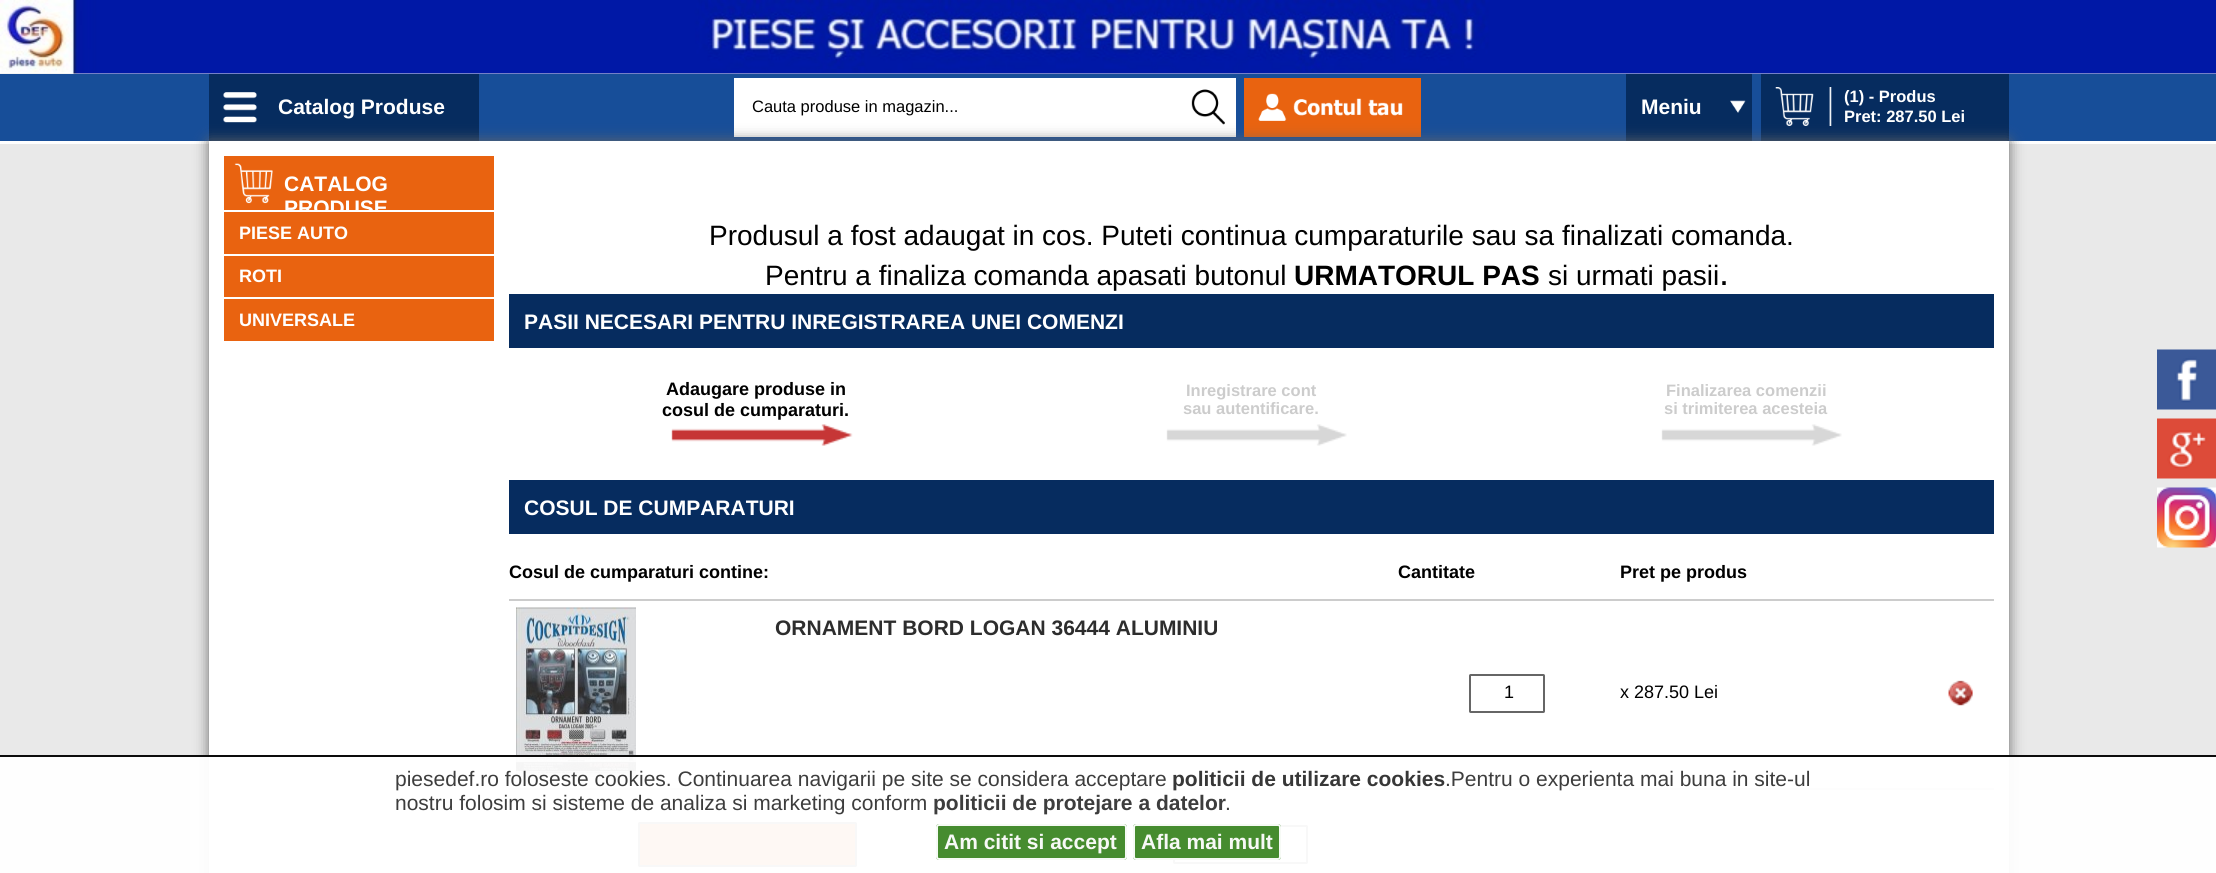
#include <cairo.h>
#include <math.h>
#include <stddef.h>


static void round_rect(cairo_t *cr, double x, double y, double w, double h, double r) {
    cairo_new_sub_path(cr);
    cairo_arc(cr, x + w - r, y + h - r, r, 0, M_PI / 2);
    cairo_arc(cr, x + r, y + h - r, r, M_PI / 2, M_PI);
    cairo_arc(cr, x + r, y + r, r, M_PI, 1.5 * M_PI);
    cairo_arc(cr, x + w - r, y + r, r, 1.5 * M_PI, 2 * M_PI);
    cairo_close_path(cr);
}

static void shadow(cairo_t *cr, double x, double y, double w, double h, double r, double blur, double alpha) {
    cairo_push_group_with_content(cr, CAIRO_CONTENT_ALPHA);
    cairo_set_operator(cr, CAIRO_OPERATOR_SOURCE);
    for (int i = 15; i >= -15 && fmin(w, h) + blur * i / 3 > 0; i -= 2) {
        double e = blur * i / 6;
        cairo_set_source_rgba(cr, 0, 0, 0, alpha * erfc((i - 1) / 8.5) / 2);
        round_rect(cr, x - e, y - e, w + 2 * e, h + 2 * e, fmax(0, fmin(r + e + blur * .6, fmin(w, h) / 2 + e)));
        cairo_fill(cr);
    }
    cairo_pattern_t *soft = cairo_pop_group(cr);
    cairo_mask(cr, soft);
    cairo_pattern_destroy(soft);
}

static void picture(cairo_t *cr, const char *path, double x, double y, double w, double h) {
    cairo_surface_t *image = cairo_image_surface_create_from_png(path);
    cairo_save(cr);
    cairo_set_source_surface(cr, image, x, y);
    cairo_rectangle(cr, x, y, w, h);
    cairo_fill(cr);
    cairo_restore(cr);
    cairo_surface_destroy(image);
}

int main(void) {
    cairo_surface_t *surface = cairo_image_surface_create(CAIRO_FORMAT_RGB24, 2216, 873);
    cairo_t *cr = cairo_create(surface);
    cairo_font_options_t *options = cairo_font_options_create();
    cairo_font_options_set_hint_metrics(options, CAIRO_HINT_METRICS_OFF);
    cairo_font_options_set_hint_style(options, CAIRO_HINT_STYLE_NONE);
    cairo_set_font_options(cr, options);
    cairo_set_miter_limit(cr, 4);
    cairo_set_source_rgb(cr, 0.914, 0.914, 0.914);
    cairo_paint(cr);
    picture(cr, "img1.png", 0, 0, 2216, 74);
    cairo_set_source_rgb(cr, 0.09, 0.306, 0.6);
    cairo_rectangle(cr, 0, 74, 2216, 67);
    cairo_fill(cr);
    cairo_set_source_rgb(cr, 1, 1, 1);
    cairo_rectangle(cr, 0, 141, 2216, 3);
    cairo_fill(cr);
    cairo_set_source_rgb(cr, 0.027, 0.173, 0.373);
    cairo_rectangle(cr, 209, 74, 270, 67);
    cairo_fill(cr);
    picture(cr, "img2.png", 223, 92, 34, 31);
    cairo_select_font_face(cr, "Liberation Sans", CAIRO_FONT_SLANT_NORMAL, CAIRO_FONT_WEIGHT_BOLD);
    cairo_set_font_size(cr, 21);
    cairo_set_source_rgb(cr, 1, 1, 1);
    cairo_move_to(cr, 278, 114);
    cairo_show_text(cr, "Catalog Produse");
    cairo_rectangle(cr, 734, 78, 502, 59);
    cairo_fill(cr);
    picture(cr, "img3.png", 1191, 89, 34, 36);
    cairo_select_font_face(cr, "Liberation Sans", CAIRO_FONT_SLANT_NORMAL, CAIRO_FONT_WEIGHT_NORMAL);
    cairo_set_font_size(cr, 16.5);
    cairo_set_source_rgb(cr, 0, 0, 0);
    cairo_move_to(cr, 752, 112);
    cairo_show_text(cr, "Cauta produse in magazin...");
    cairo_set_source_rgb(cr, 0.914, 0.388, 0.063);
    cairo_rectangle(cr, 1244, 78, 177, 59);
    cairo_fill(cr);
    picture(cr, "img4.png", 1258, 93, 145, 28);
    cairo_set_source_rgb(cr, 0.027, 0.173, 0.373);
    cairo_rectangle(cr, 1626, 74, 126, 67);
    cairo_fill(cr);
    picture(cr, "img5.png", 1730, 100, 16, 13);
    cairo_select_font_face(cr, "Liberation Sans", CAIRO_FONT_SLANT_NORMAL, CAIRO_FONT_WEIGHT_BOLD);
    cairo_set_font_size(cr, 21);
    cairo_set_source_rgb(cr, 1, 1, 1);
    cairo_move_to(cr, 1641, 114);
    cairo_show_text(cr, "Meniu");
    cairo_set_source_rgb(cr, 0.027, 0.173, 0.373);
    cairo_rectangle(cr, 1761, 74, 248, 67);
    cairo_fill(cr);
    picture(cr, "img6.png", 1775, 87, 57, 39);
    cairo_set_font_size(cr, 16.5);
    cairo_set_source_rgb(cr, 1, 1, 1);
    cairo_move_to(cr, 1844, 102);
    cairo_show_text(cr, "(1) - Produs");
    cairo_move_to(cr, 1844, 122);
    cairo_show_text(cr, "Pret: 287.50 Lei");
    cairo_set_source_rgb(cr, 0.4, 0.4, 0.4);
    shadow(cr, 209, 141, 1800, 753, 0, 7, 1);
    cairo_set_source_rgb(cr, 1, 1, 1);
    cairo_rectangle(cr, 209, 141, 1800, 732);
    cairo_fill(cr);
    cairo_set_source_rgb(cr, 0.914, 0.388, 0.063);
    cairo_rectangle(cr, 224, 156, 270, 54);
    cairo_fill(cr);
    picture(cr, "img7.png", 234, 163, 39, 41);
    cairo_set_font_size(cr, 21);
    cairo_set_source_rgb(cr, 1, 1, 1);
    cairo_move_to(cr, 284, 191);
    cairo_show_text(cr, "CATALOG");
    cairo_save(cr);
    cairo_rectangle(cr, 224, 156, 270, 54);
    cairo_clip(cr);
    cairo_move_to(cr, 284, 215);
    cairo_show_text(cr, "PRODUSE");
    cairo_restore(cr);
    cairo_set_source_rgb(cr, 0.914, 0.388, 0.063);
    cairo_rectangle(cr, 224, 212, 270, 129);
    cairo_fill(cr);
    cairo_set_font_size(cr, 18);
    cairo_set_source_rgb(cr, 1, 1, 1);
    cairo_move_to(cr, 239, 239);
    cairo_show_text(cr, "PIESE AUTO");
    cairo_rectangle(cr, 224, 254, 270, 2);
    cairo_fill(cr);
    cairo_move_to(cr, 239, 282);
    cairo_show_text(cr, "ROTI");
    cairo_rectangle(cr, 224, 297, 270, 2);
    cairo_fill(cr);
    cairo_move_to(cr, 239, 326);
    cairo_show_text(cr, "UNIVERSALE");
    cairo_select_font_face(cr, "Liberation Sans", CAIRO_FONT_SLANT_NORMAL, CAIRO_FONT_WEIGHT_NORMAL);
    cairo_set_font_size(cr, 28);
    cairo_set_source_rgb(cr, 0, 0, 0);
    cairo_move_to(cr, 709, 245);
    cairo_show_text(cr, "Produsul a fost adaugat in cos. Puteti continua cumparaturile sau sa finalizati comanda.");
    cairo_move_to(cr, 765, 285);
    cairo_show_text(cr, "Pentru a finaliza comanda apasati butonul");
    cairo_select_font_face(cr, "Liberation Sans", CAIRO_FONT_SLANT_NORMAL, CAIRO_FONT_WEIGHT_BOLD);
    cairo_move_to(cr, 1294, 285);
    cairo_show_text(cr, "URMATORUL PAS");
    cairo_select_font_face(cr, "Liberation Sans", CAIRO_FONT_SLANT_NORMAL, CAIRO_FONT_WEIGHT_NORMAL);
    cairo_move_to(cr, 1548, 285);
    cairo_show_text(cr, "si urmati pasii");
    cairo_set_font_size(cr, 36);
    cairo_move_to(cr, 1719, 285);
    cairo_show_text(cr, ".");
    cairo_set_source_rgb(cr, 0.027, 0.173, 0.373);
    cairo_rectangle(cr, 509, 294, 1485, 54);
    cairo_fill(cr);
    cairo_select_font_face(cr, "Liberation Sans", CAIRO_FONT_SLANT_NORMAL, CAIRO_FONT_WEIGHT_BOLD);
    cairo_set_font_size(cr, 21);
    cairo_set_source_rgb(cr, 1, 1, 1);
    cairo_move_to(cr, 524, 329);
    cairo_show_text(cr, "PASII NECESARI PENTRU INREGISTRAREA UNEI COMENZI");
    cairo_set_font_size(cr, 18);
    cairo_set_source_rgb(cr, 0, 0, 0);
    cairo_move_to(cr, 666, 395);
    cairo_show_text(cr, "Adaugare produse in");
    cairo_move_to(cr, 662, 416);
    cairo_show_text(cr, "cosul de cumparaturi.");
    cairo_set_font_size(cr, 16.5);
    cairo_set_source_rgb(cr, 0.8, 0.8, 0.8);
    cairo_move_to(cr, 1186, 396);
    cairo_show_text(cr, "Inregistrare cont");
    cairo_move_to(cr, 1183, 414);
    cairo_show_text(cr, "sau autentificare.");
    cairo_move_to(cr, 1666, 396);
    cairo_show_text(cr, "Finalizarea comenzii");
    cairo_move_to(cr, 1664, 414);
    cairo_show_text(cr, "si trimiterea acesteia");
    picture(cr, "img8.png", 671, 424, 182, 22);
    picture(cr, "img9.png", 1166, 424, 181, 22);
    picture(cr, "img9.png", 1661, 424, 181, 22);
    cairo_set_source_rgb(cr, 0.027, 0.173, 0.373);
    cairo_rectangle(cr, 509, 480, 1485, 54);
    cairo_fill(cr);
    cairo_set_font_size(cr, 21);
    cairo_set_source_rgb(cr, 1, 1, 1);
    cairo_move_to(cr, 524, 515);
    cairo_show_text(cr, "COSUL DE CUMPARATURI");
    cairo_set_font_size(cr, 18);
    cairo_set_source_rgb(cr, 0, 0, 0);
    cairo_move_to(cr, 509, 578);
    cairo_show_text(cr, "Cosul de cumparaturi contine:");
    cairo_move_to(cr, 1398, 578);
    cairo_show_text(cr, "Cantitate");
    cairo_move_to(cr, 1620, 578);
    cairo_show_text(cr, "Pret pe produs");
    cairo_set_source_rgb(cr, 0.8, 0.8, 0.8);
    cairo_rectangle(cr, 509, 599, 1485, 2);
    cairo_fill(cr);
    picture(cr, "img10.png", 516, 607, 120, 170);
    cairo_set_font_size(cr, 21);
    cairo_set_source_rgb(cr, 0.176, 0.176, 0.176);
    cairo_move_to(cr, 775, 635);
    cairo_show_text(cr, "ORNAMENT BORD LOGAN 36444 ALUMINIU");
    round_rect(cr, 1470, 675, 74, 37, 0.5);
    cairo_set_source_rgb(cr, 0.4, 0.4, 0.4);
    cairo_stroke(cr);
    cairo_select_font_face(cr, "Liberation Sans", CAIRO_FONT_SLANT_NORMAL, CAIRO_FONT_WEIGHT_NORMAL);
    cairo_set_font_size(cr, 18);
    cairo_set_source_rgb(cr, 0, 0, 0);
    cairo_move_to(cr, 1504, 698);
    cairo_show_text(cr, "1");
    cairo_move_to(cr, 1620, 698);
    cairo_show_text(cr, "x 287.50 Lei");
    picture(cr, "img11.png", 1948, 680, 25, 26);
    cairo_set_source_rgb(cr, 0.8, 0.8, 0.8);
    cairo_rectangle(cr, 509, 788, 1485, 2);
    cairo_fill(cr);
    cairo_set_source_rgb(cr, 0.914, 0.388, 0.063);
    round_rect(cr, 639, 823, 217, 43, 0.5);
    cairo_fill_preserve(cr);
    cairo_set_source_rgb(cr, 0.4, 0.4, 0.4);
    cairo_stroke(cr);
    round_rect(cr, 1174, 826, 133, 37, 0.5);
    cairo_stroke(cr);
    picture(cr, "img12.png", 2157, 349, 59, 61);
    picture(cr, "img13.png", 2157, 418, 59, 61);
    picture(cr, "img14.png", 2157, 487, 59, 61);
    cairo_set_source_rgba(cr, 1, 1, 1, 0.95);
    cairo_rectangle(cr, 0, 755, 2216, 118);
    cairo_fill(cr);
    cairo_set_source_rgba(cr, 0, 0, 0, 0.95);
    cairo_rectangle(cr, 0, 755, 2216, 2);
    cairo_fill(cr);
    cairo_set_font_size(cr, 21);
    cairo_set_source_rgb(cr, 0.239, 0.239, 0.239);
    cairo_move_to(cr, 395, 786);
    cairo_show_text(cr, "piesedef.ro foloseste cookies. Continuarea navigarii pe site se considera acceptare");
    cairo_select_font_face(cr, "Liberation Sans", CAIRO_FONT_SLANT_NORMAL, CAIRO_FONT_WEIGHT_BOLD);
    cairo_set_source_rgb(cr, 0.216, 0.216, 0.216);
    cairo_move_to(cr, 1172, 786);
    cairo_show_text(cr, "politicii de utilizare cookies");
    cairo_select_font_face(cr, "Liberation Sans", CAIRO_FONT_SLANT_NORMAL, CAIRO_FONT_WEIGHT_NORMAL);
    cairo_set_source_rgb(cr, 0.239, 0.239, 0.239);
    cairo_move_to(cr, 1445, 786);
    cairo_show_text(cr, ".Pentru o experienta mai buna in site-ul");
    cairo_move_to(cr, 395, 810);
    cairo_show_text(cr, "nostru folosim si sisteme de analiza si marketing conform");
    cairo_select_font_face(cr, "Liberation Sans", CAIRO_FONT_SLANT_NORMAL, CAIRO_FONT_WEIGHT_BOLD);
    cairo_move_to(cr, 933, 810);
    cairo_show_text(cr, "politicii de protejare a datelor");
    cairo_select_font_face(cr, "Liberation Sans", CAIRO_FONT_SLANT_NORMAL, CAIRO_FONT_WEIGHT_NORMAL);
    cairo_move_to(cr, 1225, 810);
    cairo_show_text(cr, ".");
    cairo_set_source_rgba(cr, 0.239, 0.529, 0.145, 0.95);
    round_rect(cr, 936, 824, 191, 36, 3);
    cairo_fill(cr);
    round_rect(cr, 937, 825, 189, 34, 2);
    cairo_set_source_rgba(cr, 1, 1, 1, 0.95);
    cairo_stroke(cr);
    cairo_select_font_face(cr, "Liberation Sans", CAIRO_FONT_SLANT_NORMAL, CAIRO_FONT_WEIGHT_BOLD);
    cairo_set_source_rgb(cr, 0.965, 0.976, 0.961);
    cairo_move_to(cr, 944, 849);
    cairo_show_text(cr, "Am citit si accept");
    cairo_set_source_rgba(cr, 0.239, 0.529, 0.145, 0.95);
    round_rect(cr, 1133, 824, 148, 36, 3);
    cairo_fill(cr);
    round_rect(cr, 1134, 825, 146, 34, 2);
    cairo_set_source_rgba(cr, 1, 1, 1, 0.95);
    cairo_stroke(cr);
    cairo_set_source_rgb(cr, 0.965, 0.976, 0.961);
    cairo_move_to(cr, 1141, 849);
    cairo_show_text(cr, "Afla mai mult");
    cairo_surface_write_to_png(surface, "page.png");
    cairo_font_options_destroy(options);
    cairo_destroy(cr);
    cairo_surface_destroy(surface);
    return 0;
}
